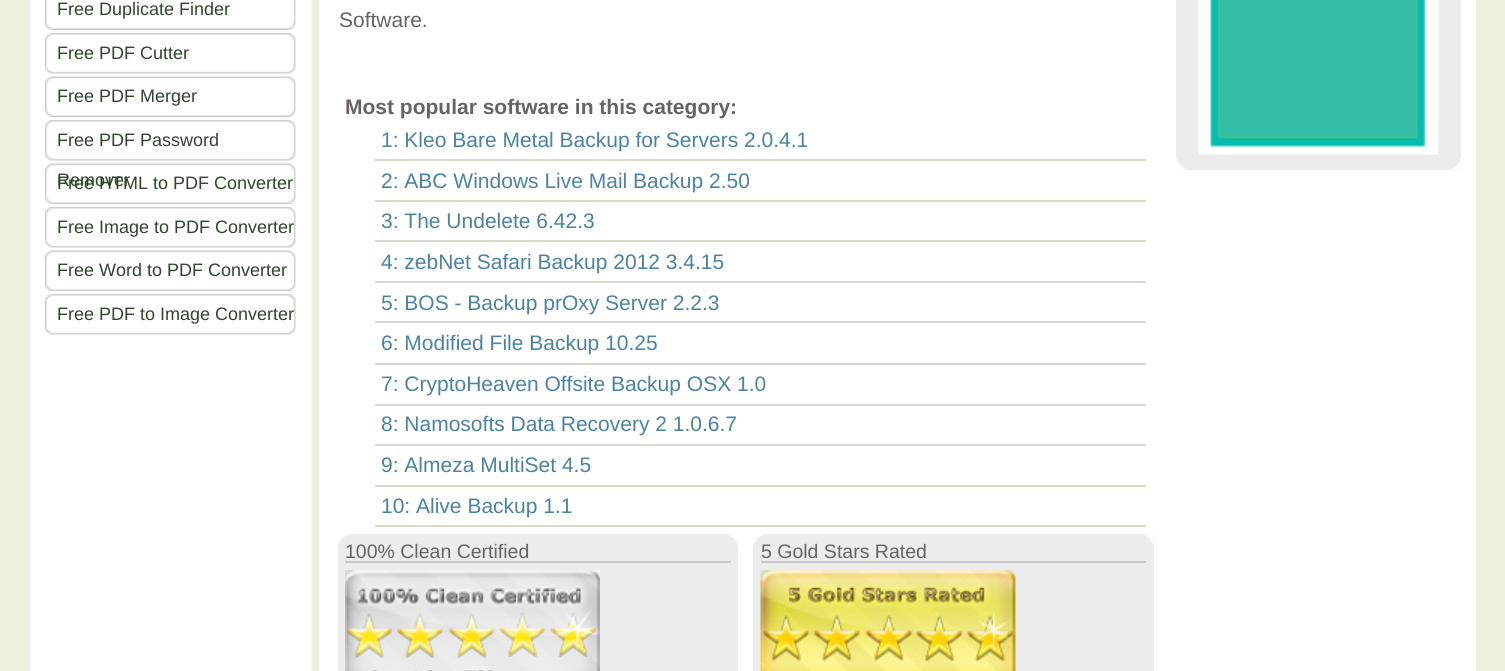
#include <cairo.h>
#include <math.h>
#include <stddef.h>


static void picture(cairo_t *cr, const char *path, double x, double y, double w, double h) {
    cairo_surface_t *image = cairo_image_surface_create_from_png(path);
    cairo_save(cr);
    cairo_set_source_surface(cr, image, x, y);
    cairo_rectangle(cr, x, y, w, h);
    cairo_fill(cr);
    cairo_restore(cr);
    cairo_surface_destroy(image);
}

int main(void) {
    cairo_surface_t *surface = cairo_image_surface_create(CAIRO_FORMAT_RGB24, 1505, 671);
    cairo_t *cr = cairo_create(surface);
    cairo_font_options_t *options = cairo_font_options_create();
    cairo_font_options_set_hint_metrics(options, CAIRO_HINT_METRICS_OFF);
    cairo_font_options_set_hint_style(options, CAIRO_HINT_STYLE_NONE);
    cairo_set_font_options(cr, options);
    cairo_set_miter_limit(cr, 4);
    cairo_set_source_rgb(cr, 0.937, 0.937, 0.867);
    cairo_paint(cr);
    picture(cr, "img1.png", 30, 0, 1446, 671);
    picture(cr, "img2.png", 45, 0, 251, 30);
    cairo_select_font_face(cr, "Liberation Sans", CAIRO_FONT_SLANT_NORMAL, CAIRO_FONT_WEIGHT_NORMAL);
    cairo_set_font_size(cr, 18);
    cairo_set_source_rgb(cr, 0.184, 0.275, 0.169);
    cairo_move_to(cr, 57, 15);
    cairo_show_text(cr, "Free Duplicate Finder");
    picture(cr, "img3.png", 45, 33, 251, 41);
    cairo_move_to(cr, 57, 59);
    cairo_show_text(cr, "Free PDF Cutter");
    picture(cr, "img4.png", 45, 76, 251, 41);
    cairo_move_to(cr, 57, 102);
    cairo_show_text(cr, "Free PDF Merger");
    picture(cr, "img3.png", 45, 120, 251, 41);
    cairo_move_to(cr, 57, 146);
    cairo_show_text(cr, "Free PDF Password");
    picture(cr, "img4.png", 45, 163, 251, 41);
    cairo_move_to(cr, 57, 186);
    cairo_show_text(cr, "Remover");
    cairo_move_to(cr, 57, 189);
    cairo_show_text(cr, "Free HTML to PDF Converter");
    picture(cr, "img3.png", 45, 207, 251, 41);
    cairo_move_to(cr, 57, 233);
    cairo_show_text(cr, "Free Image to PDF Converter");
    picture(cr, "img4.png", 45, 250, 251, 41);
    cairo_move_to(cr, 57, 276);
    cairo_show_text(cr, "Free Word to PDF Converter");
    picture(cr, "img3.png", 45, 294, 251, 41);
    cairo_move_to(cr, 57, 320);
    cairo_show_text(cr, "Free PDF to Image Converter");
    cairo_set_font_size(cr, 21);
    cairo_set_source_rgb(cr, 0.408, 0.388, 0.384);
    cairo_move_to(cr, 339, 27);
    cairo_show_text(cr, "Software.");
    cairo_select_font_face(cr, "Liberation Sans", CAIRO_FONT_SLANT_NORMAL, CAIRO_FONT_WEIGHT_BOLD);
    cairo_move_to(cr, 345, 114);
    cairo_show_text(cr, "Most popular software in this category:");
    cairo_set_source_rgb(cr, 0.855, 0.855, 0.8);
    cairo_rectangle(cr, 375, 159, 771, 2);
    cairo_fill(cr);
    cairo_select_font_face(cr, "Liberation Sans", CAIRO_FONT_SLANT_NORMAL, CAIRO_FONT_WEIGHT_NORMAL);
    cairo_set_source_rgb(cr, 0.286, 0.51, 0.655);
    cairo_move_to(cr, 381, 147);
    cairo_show_text(cr, "1: Kleo Bare Metal Backup for Servers 2.0.4.1");
    cairo_set_source_rgb(cr, 0.855, 0.855, 0.8);
    cairo_rectangle(cr, 375, 200, 771, 2);
    cairo_fill(cr);
    cairo_set_source_rgb(cr, 0.286, 0.51, 0.655);
    cairo_move_to(cr, 381, 188);
    cairo_show_text(cr, "2: ABC Windows Live Mail Backup 2.50");
    cairo_set_source_rgb(cr, 0.855, 0.855, 0.8);
    cairo_rectangle(cr, 375, 240, 771, 2);
    cairo_fill(cr);
    cairo_set_source_rgb(cr, 0.286, 0.51, 0.655);
    cairo_move_to(cr, 381, 228);
    cairo_show_text(cr, "3: The Undelete 6.42.3");
    cairo_set_source_rgb(cr, 0.855, 0.855, 0.8);
    cairo_rectangle(cr, 375, 281, 771, 2);
    cairo_fill(cr);
    cairo_set_source_rgb(cr, 0.286, 0.51, 0.655);
    cairo_move_to(cr, 381, 269);
    cairo_show_text(cr, "4: zebNet Safari Backup 2012 3.4.15");
    cairo_set_source_rgb(cr, 0.855, 0.855, 0.8);
    cairo_rectangle(cr, 375, 321, 771, 2);
    cairo_fill(cr);
    cairo_set_source_rgb(cr, 0.286, 0.51, 0.655);
    cairo_move_to(cr, 381, 310);
    cairo_show_text(cr, "5: BOS - Backup prOxy Server 2.2.3");
    cairo_set_source_rgb(cr, 0.855, 0.855, 0.8);
    cairo_rectangle(cr, 375, 363, 771, 2);
    cairo_fill(cr);
    cairo_set_source_rgb(cr, 0.286, 0.51, 0.655);
    cairo_move_to(cr, 381, 350);
    cairo_show_text(cr, "6: Modified File Backup 10.25");
    cairo_set_source_rgb(cr, 0.855, 0.855, 0.8);
    cairo_rectangle(cr, 375, 404, 771, 2);
    cairo_fill(cr);
    cairo_set_source_rgb(cr, 0.286, 0.51, 0.655);
    cairo_move_to(cr, 381, 391);
    cairo_show_text(cr, "7: CryptoHeaven Offsite Backup OSX 1.0");
    cairo_set_source_rgb(cr, 0.855, 0.855, 0.8);
    cairo_rectangle(cr, 375, 444, 771, 2);
    cairo_fill(cr);
    cairo_set_source_rgb(cr, 0.286, 0.51, 0.655);
    cairo_move_to(cr, 381, 431);
    cairo_show_text(cr, "8: Namosofts Data Recovery 2 1.0.6.7");
    cairo_set_source_rgb(cr, 0.855, 0.855, 0.8);
    cairo_rectangle(cr, 375, 485, 771, 2);
    cairo_fill(cr);
    cairo_set_source_rgb(cr, 0.286, 0.51, 0.655);
    cairo_move_to(cr, 381, 472);
    cairo_show_text(cr, "9: Almeza MultiSet 4.5");
    cairo_set_source_rgb(cr, 0.855, 0.855, 0.8);
    cairo_rectangle(cr, 375, 525, 771, 2);
    cairo_fill(cr);
    cairo_set_source_rgb(cr, 0.286, 0.51, 0.655);
    cairo_move_to(cr, 381, 513);
    cairo_show_text(cr, "10: Alive Backup 1.1");
    cairo_set_source_rgb(cr, 0.922, 0.922, 0.922);
    cairo_rectangle(cr, 338, 534, 400, 137);
    cairo_fill(cr);
    picture(cr, "img5.png", 726, 534, 12, 12);
    picture(cr, "img6.png", 337, 534, 12, 15);
    cairo_set_source_rgb(cr, 0.78, 0.78, 0.78);
    cairo_rectangle(cr, 345, 561, 386, 2);
    cairo_fill(cr);
    cairo_set_font_size(cr, 19.5);
    cairo_set_source_rgb(cr, 0.408, 0.388, 0.384);
    cairo_move_to(cr, 345, 558);
    cairo_show_text(cr, "100% Clean Certified");
    picture(cr, "img7.png", 345, 570, 255, 101);
    cairo_set_source_rgb(cr, 0.922, 0.922, 0.922);
    cairo_rectangle(cr, 753, 534, 401, 137);
    cairo_fill(cr);
    picture(cr, "img8.png", 1142, 534, 12, 11);
    picture(cr, "img9.png", 753, 534, 12, 12);
    cairo_set_source_rgb(cr, 0.78, 0.78, 0.78);
    cairo_rectangle(cr, 761, 561, 385, 2);
    cairo_fill(cr);
    cairo_set_source_rgb(cr, 0.408, 0.388, 0.384);
    cairo_move_to(cr, 761, 558);
    cairo_show_text(cr, "5 Gold Stars Rated");
    picture(cr, "img10.png", 760, 570, 256, 101);
    cairo_set_source_rgb(cr, 0.922, 0.922, 0.922);
    cairo_rectangle(cr, 1176, 0, 285, 170);
    cairo_fill(cr);
    picture(cr, "img11.png", 1176, 158, 11, 12);
    picture(cr, "img12.png", 1450, 158, 11, 12);
    picture(cr, "img13.png", 1198, 0, 241, 155);
    cairo_surface_write_to_png(surface, "page.png");
    cairo_font_options_destroy(options);
    cairo_destroy(cr);
    cairo_surface_destroy(surface);
    return 0;
}
